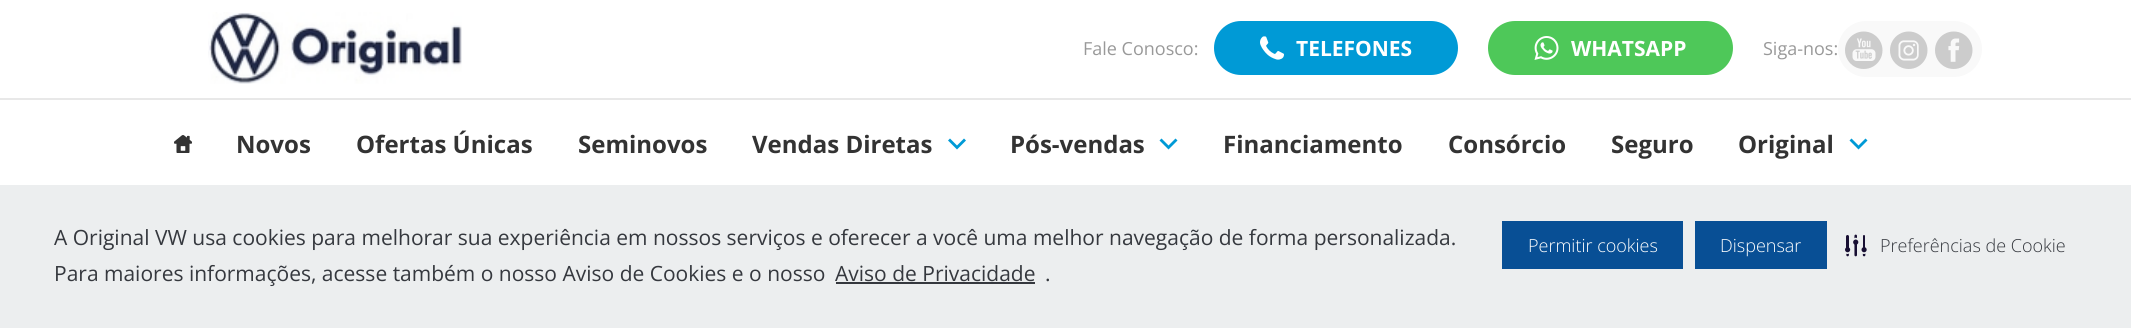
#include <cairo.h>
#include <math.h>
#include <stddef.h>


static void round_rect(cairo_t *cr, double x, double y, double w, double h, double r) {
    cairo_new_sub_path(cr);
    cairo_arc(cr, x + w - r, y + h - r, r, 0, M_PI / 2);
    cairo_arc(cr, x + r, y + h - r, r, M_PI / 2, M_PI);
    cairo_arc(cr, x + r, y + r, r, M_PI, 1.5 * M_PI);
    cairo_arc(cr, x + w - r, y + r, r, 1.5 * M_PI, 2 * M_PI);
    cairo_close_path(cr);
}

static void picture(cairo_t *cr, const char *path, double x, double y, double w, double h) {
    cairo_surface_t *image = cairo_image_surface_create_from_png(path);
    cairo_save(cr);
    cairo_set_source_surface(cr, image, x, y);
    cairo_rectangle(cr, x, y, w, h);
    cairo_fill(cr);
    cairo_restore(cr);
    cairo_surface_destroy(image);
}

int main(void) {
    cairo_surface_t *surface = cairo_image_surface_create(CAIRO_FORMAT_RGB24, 2131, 328);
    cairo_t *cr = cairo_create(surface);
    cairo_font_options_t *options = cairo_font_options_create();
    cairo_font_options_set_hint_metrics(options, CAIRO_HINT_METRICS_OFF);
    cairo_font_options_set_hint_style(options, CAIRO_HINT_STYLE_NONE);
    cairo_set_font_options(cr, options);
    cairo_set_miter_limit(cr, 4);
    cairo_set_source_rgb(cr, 1, 1, 1);
    cairo_paint(cr);
    cairo_set_source_rgb(cr, 0.91, 0.91, 0.91);
    cairo_rectangle(cr, 0, 98, 2131, 2);
    cairo_fill(cr);
    picture(cr, "img1.png", 208, 12, 254, 72);
    cairo_select_font_face(cr, "Open Sans", CAIRO_FONT_SLANT_NORMAL, CAIRO_FONT_WEIGHT_NORMAL);
    cairo_set_font_size(cr, 18);
    cairo_set_source_rgb(cr, 0.6, 0.6, 0.6);
    cairo_move_to(cr, 1083, 55);
    cairo_show_text(cr, "Fale Conosco:");
    cairo_set_source_rgb(cr, 0, 0.604, 0.839);
    round_rect(cr, 1214, 21, 244, 54, 27);
    cairo_fill(cr);
    picture(cr, "img2.png", 1260, 36, 24, 24);
    cairo_select_font_face(cr, "Open Sans", CAIRO_FONT_SLANT_NORMAL, CAIRO_FONT_WEIGHT_BOLD);
    cairo_set_font_size(cr, 21);
    cairo_set_source_rgb(cr, 1, 1, 1);
    cairo_move_to(cr, 1296, 56);
    cairo_show_text(cr, "TELEFONES");
    cairo_set_source_rgb(cr, 0.306, 0.784, 0.349);
    round_rect(cr, 1488, 21, 245, 54, 27);
    cairo_fill(cr);
    picture(cr, "img3.png", 1534, 36, 25, 24);
    cairo_set_source_rgb(cr, 1, 1, 1);
    cairo_move_to(cr, 1571, 56);
    cairo_show_text(cr, "WHATSAPP");
    cairo_select_font_face(cr, "Open Sans", CAIRO_FONT_SLANT_NORMAL, CAIRO_FONT_WEIGHT_NORMAL);
    cairo_set_font_size(cr, 18);
    cairo_set_source_rgb(cr, 0.6, 0.6, 0.6);
    cairo_move_to(cr, 1763, 55);
    cairo_show_text(cr, "Siga-nos:");
    cairo_set_source_rgb(cr, 0.973, 0.976, 0.976);
    round_rect(cr, 1838, 21, 144, 56, 28);
    cairo_fill(cr);
    picture(cr, "img4.png", 1845, 31, 38, 38);
    picture(cr, "img5.png", 1890, 31, 38, 38);
    picture(cr, "img6.png", 1935, 31, 38, 38);
    picture(cr, "img7.png", 174, 135, 18, 18);
    cairo_select_font_face(cr, "Open Sans", CAIRO_FONT_SLANT_NORMAL, CAIRO_FONT_WEIGHT_BOLD);
    cairo_set_font_size(cr, 24);
    cairo_set_source_rgb(cr, 0.2, 0.2, 0.2);
    cairo_move_to(cr, 236, 153);
    cairo_show_text(cr, "Novos");
    cairo_move_to(cr, 356, 153);
    cairo_show_text(cr, "Ofertas Únicas");
    cairo_move_to(cr, 578, 153);
    cairo_show_text(cr, "Seminovos");
    cairo_move_to(cr, 752, 153);
    cairo_show_text(cr, "Vendas Diretas");
    cairo_set_source_rgb(cr, 0, 0.604, 0.839);
    cairo_new_path(cr);
    cairo_move_to(cr, 950, 138.5);
    cairo_line_to(cr, 957, 145.5);
    cairo_line_to(cr, 964, 138.5);
    cairo_line_to(cr, 966, 140.5);
    cairo_line_to(cr, 957, 149.5);
    cairo_line_to(cr, 948, 140.5);
    cairo_close_path(cr);
    cairo_fill(cr);
    cairo_set_source_rgb(cr, 0.2, 0.2, 0.2);
    cairo_move_to(cr, 1010, 153);
    cairo_show_text(cr, "Pós-vendas");
    cairo_set_source_rgb(cr, 0, 0.604, 0.839);
    cairo_new_path(cr);
    cairo_move_to(cr, 1161.5, 138.5);
    cairo_line_to(cr, 1168.5, 145.5);
    cairo_line_to(cr, 1175.5, 138.5);
    cairo_line_to(cr, 1177.5, 140.5);
    cairo_line_to(cr, 1168.5, 149.5);
    cairo_line_to(cr, 1159.5, 140.5);
    cairo_close_path(cr);
    cairo_fill(cr);
    cairo_set_source_rgb(cr, 0.2, 0.2, 0.2);
    cairo_move_to(cr, 1223, 153);
    cairo_show_text(cr, "Financiamento");
    cairo_move_to(cr, 1448, 153);
    cairo_show_text(cr, "Consórcio");
    cairo_move_to(cr, 1611, 153);
    cairo_show_text(cr, "Seguro");
    cairo_move_to(cr, 1738, 153);
    cairo_show_text(cr, "Original");
    cairo_set_source_rgb(cr, 0, 0.604, 0.839);
    cairo_new_path(cr);
    cairo_move_to(cr, 1851.5, 138.5);
    cairo_line_to(cr, 1858.5, 145.5);
    cairo_line_to(cr, 1865.5, 138.5);
    cairo_line_to(cr, 1867.5, 140.5);
    cairo_line_to(cr, 1858.5, 149.5);
    cairo_line_to(cr, 1849.5, 140.5);
    cairo_close_path(cr);
    cairo_fill(cr);
    cairo_set_source_rgb(cr, 0.922, 0.933, 0.937);
    cairo_rectangle(cr, 0, 185, 2131, 143);
    cairo_fill(cr);
    cairo_select_font_face(cr, "Open Sans", CAIRO_FONT_SLANT_NORMAL, CAIRO_FONT_WEIGHT_NORMAL);
    cairo_set_font_size(cr, 21);
    cairo_set_source_rgb(cr, 0.208, 0.22, 0.243);
    cairo_move_to(cr, 54, 245);
    cairo_show_text(cr, "A Original VW usa cookies para melhorar sua experiência em nossos serviços e oferecer a você uma melhor navegação de forma personalizada.");
    cairo_move_to(cr, 54, 281);
    cairo_show_text(cr, "Para maiores informações, acesse também o nosso Aviso de Cookies e o nosso");
    cairo_move_to(cr, 835, 281);
    cairo_show_text(cr, "Aviso de Privacidade");
    cairo_rectangle(cr, 836, 282, 199, 2);
    cairo_fill(cr);
    cairo_move_to(cr, 1045, 281);
    cairo_show_text(cr, ".");
    cairo_set_source_rgb(cr, 0.035, 0.31, 0.584);
    cairo_rectangle(cr, 1502, 221, 181, 48);
    cairo_fill(cr);
    cairo_select_font_face(cr, "Open Sans Light", CAIRO_FONT_SLANT_NORMAL, CAIRO_FONT_WEIGHT_NORMAL);
    cairo_set_font_size(cr, 18);
    cairo_set_source_rgb(cr, 1, 1, 1);
    cairo_move_to(cr, 1528, 252);
    cairo_show_text(cr, "Permitir cookies");
    cairo_set_source_rgb(cr, 0.035, 0.31, 0.584);
    cairo_rectangle(cr, 1695, 221, 132, 48);
    cairo_fill(cr);
    cairo_set_source_rgb(cr, 1, 1, 1);
    cairo_move_to(cr, 1720, 252);
    cairo_show_text(cr, "Dispensar");
    picture(cr, "img8.png", 1845, 234, 22, 23);
    cairo_set_source_rgb(cr, 0.208, 0.22, 0.243);
    cairo_move_to(cr, 1880, 252);
    cairo_show_text(cr, "Preferências de Cookie");
    cairo_surface_write_to_png(surface, "page.png");
    cairo_font_options_destroy(options);
    cairo_destroy(cr);
    cairo_surface_destroy(surface);
    return 0;
}
